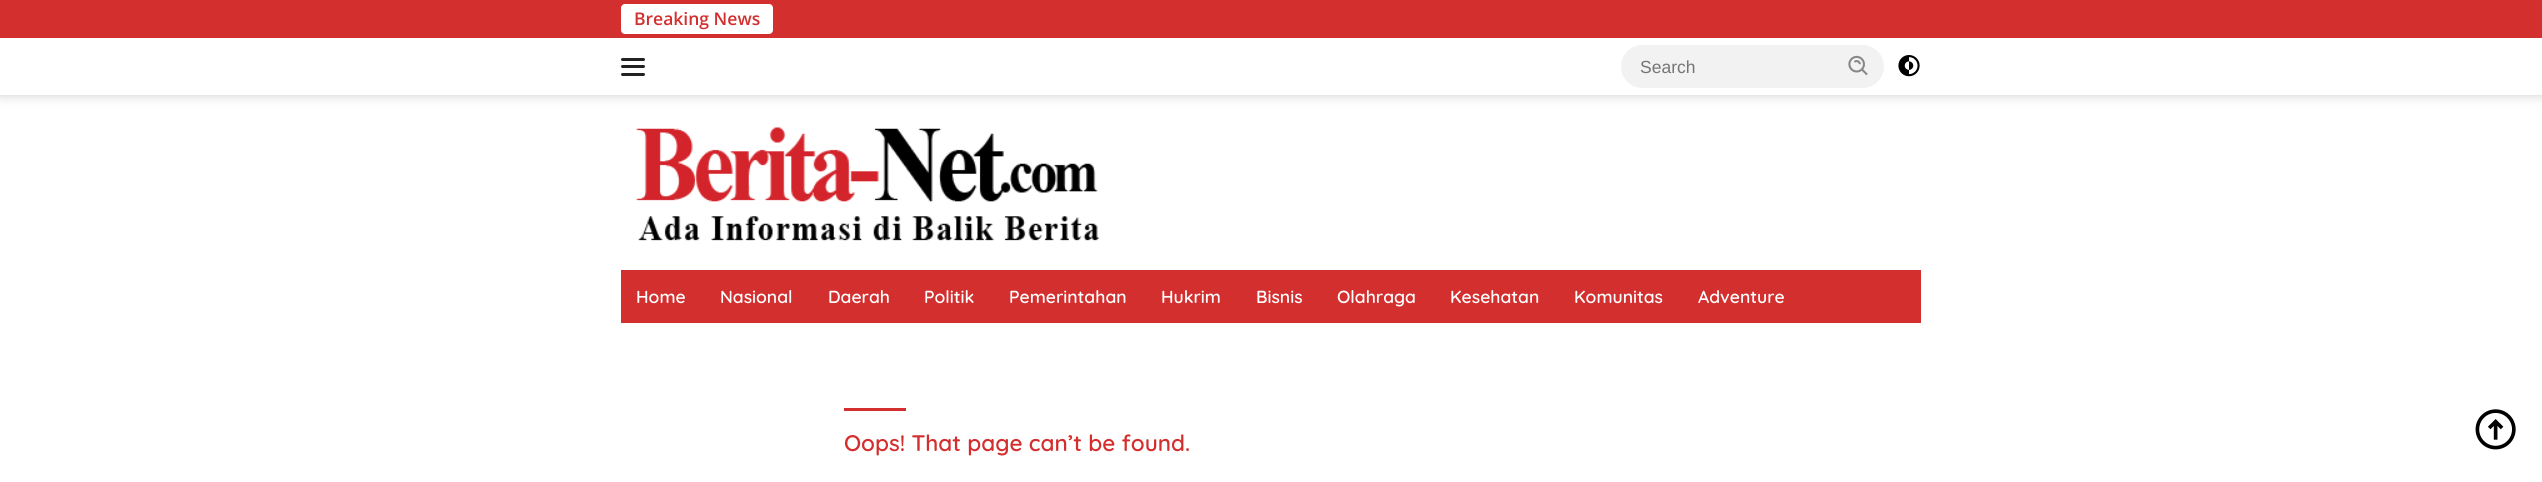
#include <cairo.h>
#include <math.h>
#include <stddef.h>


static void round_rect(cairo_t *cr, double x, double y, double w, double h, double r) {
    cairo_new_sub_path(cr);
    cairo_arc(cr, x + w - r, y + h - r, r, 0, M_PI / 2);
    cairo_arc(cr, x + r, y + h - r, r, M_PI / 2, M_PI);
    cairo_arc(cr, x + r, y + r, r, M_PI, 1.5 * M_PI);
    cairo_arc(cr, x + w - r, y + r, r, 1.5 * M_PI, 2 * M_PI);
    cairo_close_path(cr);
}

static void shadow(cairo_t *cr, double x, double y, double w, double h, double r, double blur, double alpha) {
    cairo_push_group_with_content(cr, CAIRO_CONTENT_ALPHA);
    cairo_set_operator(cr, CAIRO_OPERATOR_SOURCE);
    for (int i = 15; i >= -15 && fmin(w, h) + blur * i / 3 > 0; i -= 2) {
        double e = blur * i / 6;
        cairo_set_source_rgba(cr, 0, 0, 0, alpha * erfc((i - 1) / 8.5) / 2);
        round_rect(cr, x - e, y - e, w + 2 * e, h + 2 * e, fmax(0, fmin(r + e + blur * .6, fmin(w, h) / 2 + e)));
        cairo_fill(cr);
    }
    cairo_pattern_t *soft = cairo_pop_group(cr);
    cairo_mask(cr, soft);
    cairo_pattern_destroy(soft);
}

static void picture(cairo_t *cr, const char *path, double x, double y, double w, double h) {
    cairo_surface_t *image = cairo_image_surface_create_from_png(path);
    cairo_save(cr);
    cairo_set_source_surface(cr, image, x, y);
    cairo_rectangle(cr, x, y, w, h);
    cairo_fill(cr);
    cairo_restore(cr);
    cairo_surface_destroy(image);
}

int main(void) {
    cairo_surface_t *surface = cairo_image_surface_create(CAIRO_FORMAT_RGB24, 2542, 482);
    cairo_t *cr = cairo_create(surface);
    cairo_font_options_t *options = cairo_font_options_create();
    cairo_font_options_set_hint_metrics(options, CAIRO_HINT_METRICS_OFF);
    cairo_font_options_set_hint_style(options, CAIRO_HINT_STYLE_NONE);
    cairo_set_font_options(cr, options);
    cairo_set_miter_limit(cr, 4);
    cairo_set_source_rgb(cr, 1, 1, 1);
    cairo_paint(cr);
    cairo_set_source_rgb(cr, 0, 0, 0);
    shadow(cr, 0, 0, 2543, 95, 0, 6, 0.2);
    cairo_set_source_rgb(cr, 1, 1, 1);
    cairo_rectangle(cr, 0, 38, 2542, 57);
    cairo_fill(cr);
    cairo_set_source_rgb(cr, 0.827, 0.184, 0.184);
    cairo_rectangle(cr, 0, 0, 2542, 38);
    cairo_fill(cr);
    cairo_set_source_rgb(cr, 1, 1, 1);
    round_rect(cr, 621, 4, 152, 30, 4);
    cairo_fill(cr);
    cairo_select_font_face(cr, "Open Sans SemiBold", CAIRO_FONT_SLANT_NORMAL, CAIRO_FONT_WEIGHT_NORMAL);
    cairo_set_font_size(cr, 17.5);
    cairo_set_source_rgb(cr, 0.827, 0.184, 0.184);
    cairo_move_to(cr, 634, 25);
    cairo_show_text(cr, "Breaking News");
    cairo_set_source_rgb(cr, 0.133, 0.133, 0.133);
    round_rect(cr, 621, 58, 24, 3, 1.5);
    cairo_fill(cr);
    round_rect(cr, 621, 65, 24, 3, 1.5);
    cairo_fill(cr);
    round_rect(cr, 621, 73, 24, 3, 1.5);
    cairo_fill(cr);
    cairo_set_source_rgb(cr, 0.949, 0.949, 0.949);
    round_rect(cr, 1621, 45, 263, 43, 21.5);
    cairo_fill(cr);
    cairo_select_font_face(cr, "Liberation Sans", CAIRO_FONT_SLANT_NORMAL, CAIRO_FONT_WEIGHT_NORMAL);
    cairo_set_source_rgb(cr, 0.459, 0.459, 0.459);
    cairo_move_to(cr, 1640, 73);
    cairo_show_text(cr, "Search");
    picture(cr, "img1.png", 1848, 55, 20, 21);
    picture(cr, "img2.png", 1898, 55, 22, 22);
    picture(cr, "img3.png", 636, 127, 463, 114);
    cairo_set_source_rgb(cr, 0.827, 0.184, 0.184);
    cairo_rectangle(cr, 621, 270, 1300, 53);
    cairo_fill(cr);
    cairo_select_font_face(cr, "Quicksand SemiBold", CAIRO_FONT_SLANT_NORMAL, CAIRO_FONT_WEIGHT_NORMAL);
    cairo_set_source_rgb(cr, 1, 1, 1);
    cairo_move_to(cr, 636, 303);
    cairo_show_text(cr, "Home");
    cairo_move_to(cr, 720, 303);
    cairo_show_text(cr, "Nasional");
    cairo_move_to(cr, 828, 303);
    cairo_show_text(cr, "Daerah");
    cairo_move_to(cr, 924, 303);
    cairo_show_text(cr, "Politik");
    cairo_move_to(cr, 1009, 303);
    cairo_show_text(cr, "Pemerintahan");
    cairo_move_to(cr, 1161, 303);
    cairo_show_text(cr, "Hukrim");
    cairo_move_to(cr, 1256, 303);
    cairo_show_text(cr, "Bisnis");
    cairo_move_to(cr, 1337, 303);
    cairo_show_text(cr, "Olahraga");
    cairo_move_to(cr, 1450, 303);
    cairo_show_text(cr, "Kesehatan");
    cairo_move_to(cr, 1574, 303);
    cairo_show_text(cr, "Komunitas");
    cairo_move_to(cr, 1698, 303);
    cairo_show_text(cr, "Adventure");
    cairo_set_source_rgb(cr, 0.827, 0.184, 0.184);
    cairo_rectangle(cr, 844, 408, 62, 3);
    cairo_fill(cr);
    cairo_set_font_size(cr, 22.5);
    cairo_move_to(cr, 844, 451);
    cairo_show_text(cr, "Oops! That page can’t be found.");
    picture(cr, "img4.png", 2475, 409, 41, 41);
    cairo_surface_write_to_png(surface, "page.png");
    cairo_font_options_destroy(options);
    cairo_destroy(cr);
    cairo_surface_destroy(surface);
    return 0;
}
